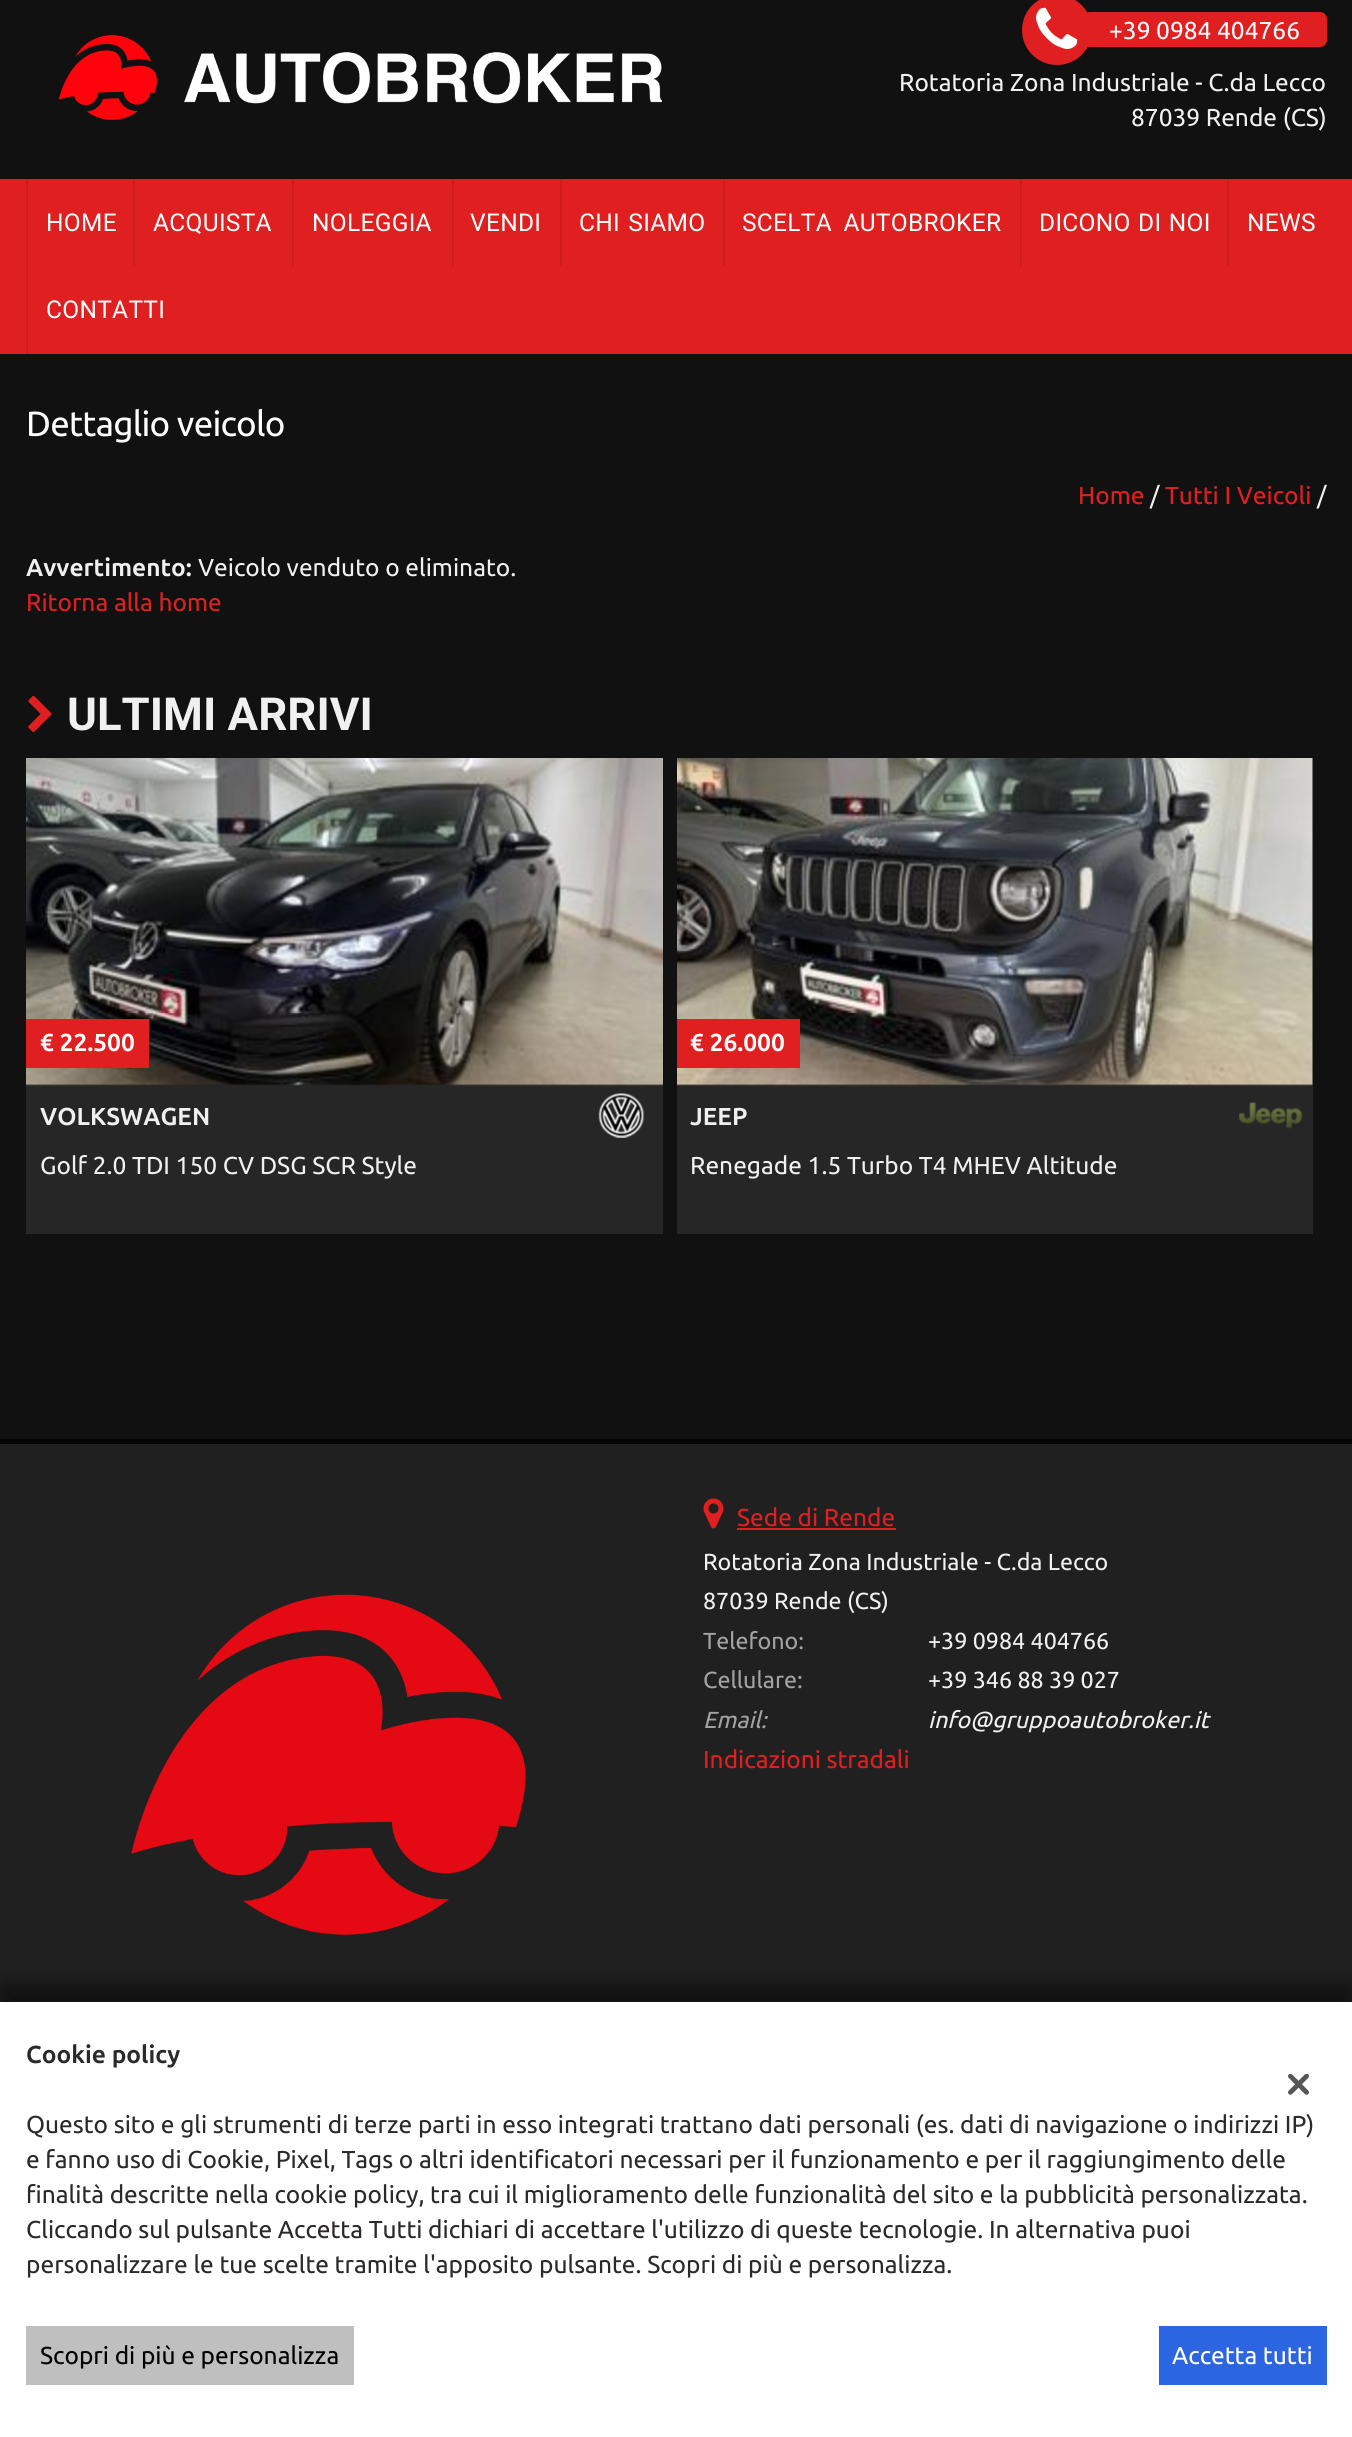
#include <cairo.h>
#include <math.h>
#include <stddef.h>


static void spaced_text(cairo_t *cr, double x, double y, const char *s, double letter, double word) {
    cairo_move_to(cr, x, y);
    while (*s) {
        char ch[5] = {0};
        int n = 0;
        do ch[n++] = *s++; while ((*s & 0xC0) == 0x80);
        cairo_show_text(cr, ch);
        cairo_rel_move_to(cr, letter + word * (*ch == ' '), 0);
    }
}

static void round_rect(cairo_t *cr, double x, double y, double w, double h, double r) {
    cairo_new_sub_path(cr);
    cairo_arc(cr, x + w - r, y + h - r, r, 0, M_PI / 2);
    cairo_arc(cr, x + r, y + h - r, r, M_PI / 2, M_PI);
    cairo_arc(cr, x + r, y + r, r, M_PI, 1.5 * M_PI);
    cairo_arc(cr, x + w - r, y + r, r, 1.5 * M_PI, 2 * M_PI);
    cairo_close_path(cr);
}

static void shadow(cairo_t *cr, double x, double y, double w, double h, double r, double blur, double alpha) {
    cairo_push_group_with_content(cr, CAIRO_CONTENT_ALPHA);
    cairo_set_operator(cr, CAIRO_OPERATOR_SOURCE);
    for (int i = 15; i >= -15 && fmin(w, h) + blur * i / 3 > 0; i -= 2) {
        double e = blur * i / 6;
        cairo_set_source_rgba(cr, 0, 0, 0, alpha * erfc((i - 1) / 8.5) / 2);
        round_rect(cr, x - e, y - e, w + 2 * e, h + 2 * e, fmax(0, fmin(r + e + blur * .6, fmin(w, h) / 2 + e)));
        cairo_fill(cr);
    }
    cairo_pattern_t *soft = cairo_pop_group(cr);
    cairo_mask(cr, soft);
    cairo_pattern_destroy(soft);
}

static void picture(cairo_t *cr, const char *path, double x, double y, double w, double h) {
    cairo_surface_t *image = cairo_image_surface_create_from_png(path);
    cairo_save(cr);
    cairo_set_source_surface(cr, image, x, y);
    cairo_rectangle(cr, x, y, w, h);
    cairo_fill(cr);
    cairo_restore(cr);
    cairo_surface_destroy(image);
}

int main(void) {
    cairo_surface_t *surface = cairo_image_surface_create(CAIRO_FORMAT_RGB24, 1352, 2437);
    cairo_t *cr = cairo_create(surface);
    cairo_font_options_t *options = cairo_font_options_create();
    cairo_font_options_set_hint_metrics(options, CAIRO_HINT_METRICS_OFF);
    cairo_font_options_set_hint_style(options, CAIRO_HINT_STYLE_NONE);
    cairo_set_font_options(cr, options);
    cairo_set_miter_limit(cr, 4);
    cairo_set_source_rgb(cr, 0.067, 0.067, 0.067);
    cairo_paint(cr);
    picture(cr, "img1.png", 58, 35, 604, 85);
    cairo_set_source_rgb(cr, 0.878, 0.125, 0.125);
    cairo_arc(cr, 1057, 30, 35, 0, 2 * M_PI);
    cairo_fill(cr);
    picture(cr, "img2.png", 1036, 7, 42, 42);
    round_rect(cr, 1083, 12, 244, 35, 7);
    cairo_fill(cr);
    cairo_select_font_face(cr, "Ubuntu", CAIRO_FONT_SLANT_NORMAL, CAIRO_FONT_WEIGHT_NORMAL);
    cairo_set_font_size(cr, 24.5);
    cairo_set_source_rgb(cr, 1, 1, 1);
    cairo_move_to(cr, 1109, 39);
    cairo_show_text(cr, "+39 0984 404766");
    cairo_set_source_rgb(cr, 0.941, 0.941, 0.941);
    cairo_move_to(cr, 899, 91);
    cairo_show_text(cr, "Rotatoria Zona Industriale - C.da Lecco");
    cairo_move_to(cr, 1131, 126);
    cairo_show_text(cr, "87039 Rende (CS)");
    cairo_set_source_rgb(cr, 0.878, 0.125, 0.125);
    cairo_rectangle(cr, 0, 179, 1352, 175);
    cairo_fill(cr);
    cairo_set_source_rgb(cr, 0.812, 0.114, 0.114);
    cairo_rectangle(cr, 26, 179, 2, 175);
    cairo_fill(cr);
    cairo_select_font_face(cr, "Roboto", CAIRO_FONT_SLANT_NORMAL, CAIRO_FONT_WEIGHT_NORMAL);
    cairo_set_source_rgb(cr, 1, 1, 1);
    spaced_text(cr, 46, 231, "HOME", 0.3, 0);
    cairo_set_source_rgb(cr, 0.812, 0.114, 0.114);
    cairo_rectangle(cr, 133, 179, 2, 87);
    cairo_fill(cr);
    cairo_set_source_rgb(cr, 1, 1, 1);
    spaced_text(cr, 153, 231, "ACQUISTA", 0.3, 0);
    cairo_set_source_rgb(cr, 0.812, 0.114, 0.114);
    cairo_rectangle(cr, 292, 179, 2, 87);
    cairo_fill(cr);
    cairo_set_source_rgb(cr, 1, 1, 1);
    spaced_text(cr, 312, 231, "NOLEGGIA", 0.3, 0);
    cairo_set_source_rgb(cr, 0.812, 0.114, 0.114);
    cairo_rectangle(cr, 452, 179, 2, 87);
    cairo_fill(cr);
    cairo_set_source_rgb(cr, 1, 1, 1);
    spaced_text(cr, 470, 231, "VENDI", 0.3, 0);
    cairo_set_source_rgb(cr, 0.812, 0.114, 0.114);
    cairo_rectangle(cr, 560, 179, 2, 87);
    cairo_fill(cr);
    cairo_set_source_rgb(cr, 1, 1, 1);
    spaced_text(cr, 579, 231, "CHI SIAMO", 0.3, 2);
    cairo_set_source_rgb(cr, 0.812, 0.114, 0.114);
    cairo_rectangle(cr, 723, 179, 2, 87);
    cairo_fill(cr);
    cairo_set_source_rgb(cr, 1, 1, 1);
    spaced_text(cr, 742, 231, "SCELTA AUTOBROKER", 0.3, 5);
    cairo_set_source_rgb(cr, 0.812, 0.114, 0.114);
    cairo_rectangle(cr, 1020, 179, 2, 87);
    cairo_fill(cr);
    cairo_set_source_rgb(cr, 1, 1, 1);
    spaced_text(cr, 1039, 231, "DICONO DI NOI", 0.3, 1);
    cairo_set_source_rgb(cr, 0.812, 0.114, 0.114);
    cairo_rectangle(cr, 1227, 179, 2, 87);
    cairo_fill(cr);
    cairo_set_source_rgb(cr, 1, 1, 1);
    spaced_text(cr, 1247, 231, "NEWS", 0.3, 0);
    spaced_text(cr, 46, 318, "CONTATTI", 0.3, 0);
    cairo_select_font_face(cr, "Ubuntu", CAIRO_FONT_SLANT_NORMAL, CAIRO_FONT_WEIGHT_NORMAL);
    cairo_set_font_size(cr, 35);
    spaced_text(cr, 26, 436, "Dettaglio veicolo", -0.75, 0);
    cairo_set_font_size(cr, 24.5);
    cairo_set_source_rgb(cr, 0.878, 0.125, 0.125);
    cairo_move_to(cr, 1078, 504);
    cairo_show_text(cr, "Home");
    cairo_set_source_rgb(cr, 0.941, 0.941, 0.941);
    cairo_move_to(cr, 1150, 504);
    cairo_show_text(cr, "/");
    cairo_set_source_rgb(cr, 0.878, 0.125, 0.125);
    cairo_move_to(cr, 1165, 504);
    cairo_show_text(cr, "Tutti I Veicoli");
    cairo_set_source_rgb(cr, 0.941, 0.941, 0.941);
    cairo_move_to(cr, 1317, 504);
    cairo_show_text(cr, "/");
    cairo_select_font_face(cr, "Ubuntu", CAIRO_FONT_SLANT_NORMAL, CAIRO_FONT_WEIGHT_BOLD);
    cairo_move_to(cr, 26, 576);
    cairo_show_text(cr, "Avvertimento:");
    cairo_select_font_face(cr, "Ubuntu", CAIRO_FONT_SLANT_NORMAL, CAIRO_FONT_WEIGHT_NORMAL);
    cairo_move_to(cr, 198, 576);
    cairo_show_text(cr, "Veicolo venduto o eliminato.");
    cairo_set_source_rgb(cr, 0.878, 0.125, 0.125);
    cairo_move_to(cr, 26, 611);
    cairo_show_text(cr, "Ritorna alla home");
    picture(cr, "img3.png", 28, 695, 24, 37);
    cairo_select_font_face(cr, "Roboto", CAIRO_FONT_SLANT_NORMAL, CAIRO_FONT_WEIGHT_BOLD);
    cairo_set_font_size(cr, 45.5);
    cairo_set_source_rgb(cr, 0.941, 0.941, 0.941);
    cairo_move_to(cr, 67, 730);
    cairo_show_text(cr, "ULTIMI ARRIVI");
    cairo_set_source_rgb(cr, 0.149, 0.149, 0.149);
    cairo_rectangle(cr, 26, 1084, 637, 150);
    cairo_fill(cr);
    picture(cr, "img4.png", 26, 758, 637, 328);
    cairo_set_source_rgb(cr, 0.878, 0.125, 0.125);
    cairo_rectangle(cr, 26, 1019, 123, 49);
    cairo_fill(cr);
    cairo_select_font_face(cr, "Ubuntu", CAIRO_FONT_SLANT_NORMAL, CAIRO_FONT_WEIGHT_BOLD);
    cairo_set_font_size(cr, 24.5);
    cairo_set_source_rgb(cr, 1, 1, 1);
    cairo_move_to(cr, 40, 1051);
    cairo_show_text(cr, "€ 22.500");
    cairo_set_source_rgb(cr, 0.941, 0.941, 0.941);
    cairo_move_to(cr, 40, 1125);
    cairo_show_text(cr, "VOLKSWAGEN");
    picture(cr, "img5.png", 598, 1093, 47, 45);
    cairo_select_font_face(cr, "Ubuntu", CAIRO_FONT_SLANT_NORMAL, CAIRO_FONT_WEIGHT_NORMAL);
    cairo_move_to(cr, 40, 1174);
    cairo_show_text(cr, "Golf 2.0 TDI 150 CV DSG SCR Style");
    cairo_set_source_rgb(cr, 0.149, 0.149, 0.149);
    cairo_rectangle(cr, 677, 758, 636, 476);
    cairo_fill(cr);
    picture(cr, "img6.png", 677, 758, 636, 328);
    cairo_set_source_rgb(cr, 0.878, 0.125, 0.125);
    cairo_rectangle(cr, 677, 1019, 123, 49);
    cairo_fill(cr);
    cairo_select_font_face(cr, "Ubuntu", CAIRO_FONT_SLANT_NORMAL, CAIRO_FONT_WEIGHT_BOLD);
    cairo_set_source_rgb(cr, 1, 1, 1);
    cairo_move_to(cr, 690, 1051);
    cairo_show_text(cr, "€ 26.000");
    cairo_set_source_rgb(cr, 0.941, 0.941, 0.941);
    cairo_move_to(cr, 690, 1125);
    cairo_show_text(cr, "JEEP");
    picture(cr, "img7.png", 1239, 1102, 64, 27);
    cairo_select_font_face(cr, "Ubuntu", CAIRO_FONT_SLANT_NORMAL, CAIRO_FONT_WEIGHT_NORMAL);
    cairo_move_to(cr, 690, 1174);
    cairo_show_text(cr, "Renegade 1.5 Turbo T4 MHEV Altitude");
    cairo_set_source_rgb(cr, 0.125, 0.125, 0.125);
    cairo_rectangle(cr, 0, 1444, 1352, 558);
    cairo_fill(cr);
    cairo_set_source_rgb(cr, 0.024, 0.024, 0.024);
    cairo_rectangle(cr, 0, 1439, 1352, 5);
    cairo_fill(cr);
    picture(cr, "img8.png", 131, 1594, 395, 341);
    picture(cr, "img9.png", 703, 1498, 21, 31);
    cairo_set_source_rgb(cr, 0.878, 0.125, 0.125);
    cairo_move_to(cr, 737, 1526);
    cairo_show_text(cr, "Sede di Rende");
    cairo_rectangle(cr, 737, 1528, 159, 2);
    cairo_fill(cr);
    cairo_set_font_size(cr, 23.25);
    cairo_set_source_rgb(cr, 0.941, 0.941, 0.941);
    cairo_move_to(cr, 703, 1570);
    cairo_show_text(cr, "Rotatoria Zona Industriale - C.da Lecco");
    cairo_move_to(cr, 703, 1609);
    cairo_show_text(cr, "87039 Rende (CS)");
    cairo_set_source_rgb(cr, 0.639, 0.639, 0.639);
    cairo_move_to(cr, 703, 1649);
    cairo_show_text(cr, "Telefono:");
    cairo_set_source_rgb(cr, 0.941, 0.941, 0.941);
    cairo_move_to(cr, 928, 1649);
    cairo_show_text(cr, "+39 0984 404766");
    cairo_set_source_rgb(cr, 0.639, 0.639, 0.639);
    cairo_move_to(cr, 703, 1688);
    cairo_show_text(cr, "Cellulare:");
    cairo_set_source_rgb(cr, 0.941, 0.941, 0.941);
    cairo_move_to(cr, 928, 1688);
    cairo_show_text(cr, "+39 346 88 39 027");
    cairo_select_font_face(cr, "Ubuntu", CAIRO_FONT_SLANT_ITALIC, CAIRO_FONT_WEIGHT_NORMAL);
    cairo_set_source_rgb(cr, 0.639, 0.639, 0.639);
    cairo_move_to(cr, 703, 1728);
    cairo_show_text(cr, "Email:");
    cairo_set_source_rgb(cr, 0.941, 0.941, 0.941);
    cairo_move_to(cr, 928, 1728);
    cairo_show_text(cr, "info@gruppoautobroker.it");
    cairo_select_font_face(cr, "Ubuntu", CAIRO_FONT_SLANT_NORMAL, CAIRO_FONT_WEIGHT_NORMAL);
    cairo_set_font_size(cr, 24.5);
    cairo_set_source_rgb(cr, 0.878, 0.125, 0.125);
    cairo_move_to(cr, 703, 1768);
    cairo_show_text(cr, "Indicazioni stradali");
    cairo_set_source_rgb(cr, 0, 0, 0);
    shadow(cr, 0, 1985, 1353, 435, 0, 10.5, 0.5);
    cairo_set_source_rgb(cr, 1, 1, 1);
    cairo_rectangle(cr, 0, 2002, 1352, 435);
    cairo_fill(cr);
    cairo_select_font_face(cr, "Ubuntu", CAIRO_FONT_SLANT_NORMAL, CAIRO_FONT_WEIGHT_BOLD);
    cairo_set_source_rgb(cr, 0.169, 0.161, 0.161);
    cairo_move_to(cr, 26, 2063);
    cairo_show_text(cr, "Cookie policy");
    cairo_select_font_face(cr, "Ubuntu", CAIRO_FONT_SLANT_NORMAL, CAIRO_FONT_WEIGHT_NORMAL);
    cairo_move_to(cr, 26, 2133);
    cairo_show_text(cr, "Questo sito e gli strumenti di terze parti in esso integrati trattano dati personali (es. dati di navigazione o indirizzi IP)");
    cairo_move_to(cr, 26, 2168);
    cairo_show_text(cr, "e fanno uso di Cookie, Pixel, Tags o altri identificatori necessari per il funzionamento e per il raggiungimento delle");
    cairo_move_to(cr, 26, 2203);
    cairo_show_text(cr, "finalità descritte nella cookie policy, tra cui il miglioramento delle funzionalità del sito e la pubblicità personalizzata.");
    cairo_move_to(cr, 26, 2238);
    cairo_show_text(cr, "Cliccando sul pulsante Accetta Tutti dichiari di accettare l'utilizzo di queste tecnologie. In alternativa puoi");
    cairo_move_to(cr, 26, 2273);
    cairo_show_text(cr, "personalizzare le tue scelte tramite l'apposito pulsante. Scopri di più e personalizza.");
    cairo_set_source_rgb(cr, 0.749, 0.749, 0.749);
    cairo_rectangle(cr, 26, 2326, 328, 59);
    cairo_fill(cr);
    cairo_set_source_rgb(cr, 0, 0, 0);
    cairo_move_to(cr, 40, 2364);
    cairo_show_text(cr, "Scopri di più e personalizza");
    cairo_set_source_rgb(cr, 0.173, 0.396, 0.882);
    cairo_rectangle(cr, 1159, 2326, 168, 59);
    cairo_fill(cr);
    cairo_set_source_rgb(cr, 1, 1, 1);
    cairo_move_to(cr, 1172, 2364);
    cairo_show_text(cr, "Accetta tutti");
    picture(cr, "img10.png", 1288, 2074, 21, 21);
    cairo_surface_write_to_png(surface, "page.png");
    cairo_font_options_destroy(options);
    cairo_destroy(cr);
    cairo_surface_destroy(surface);
    return 0;
}
